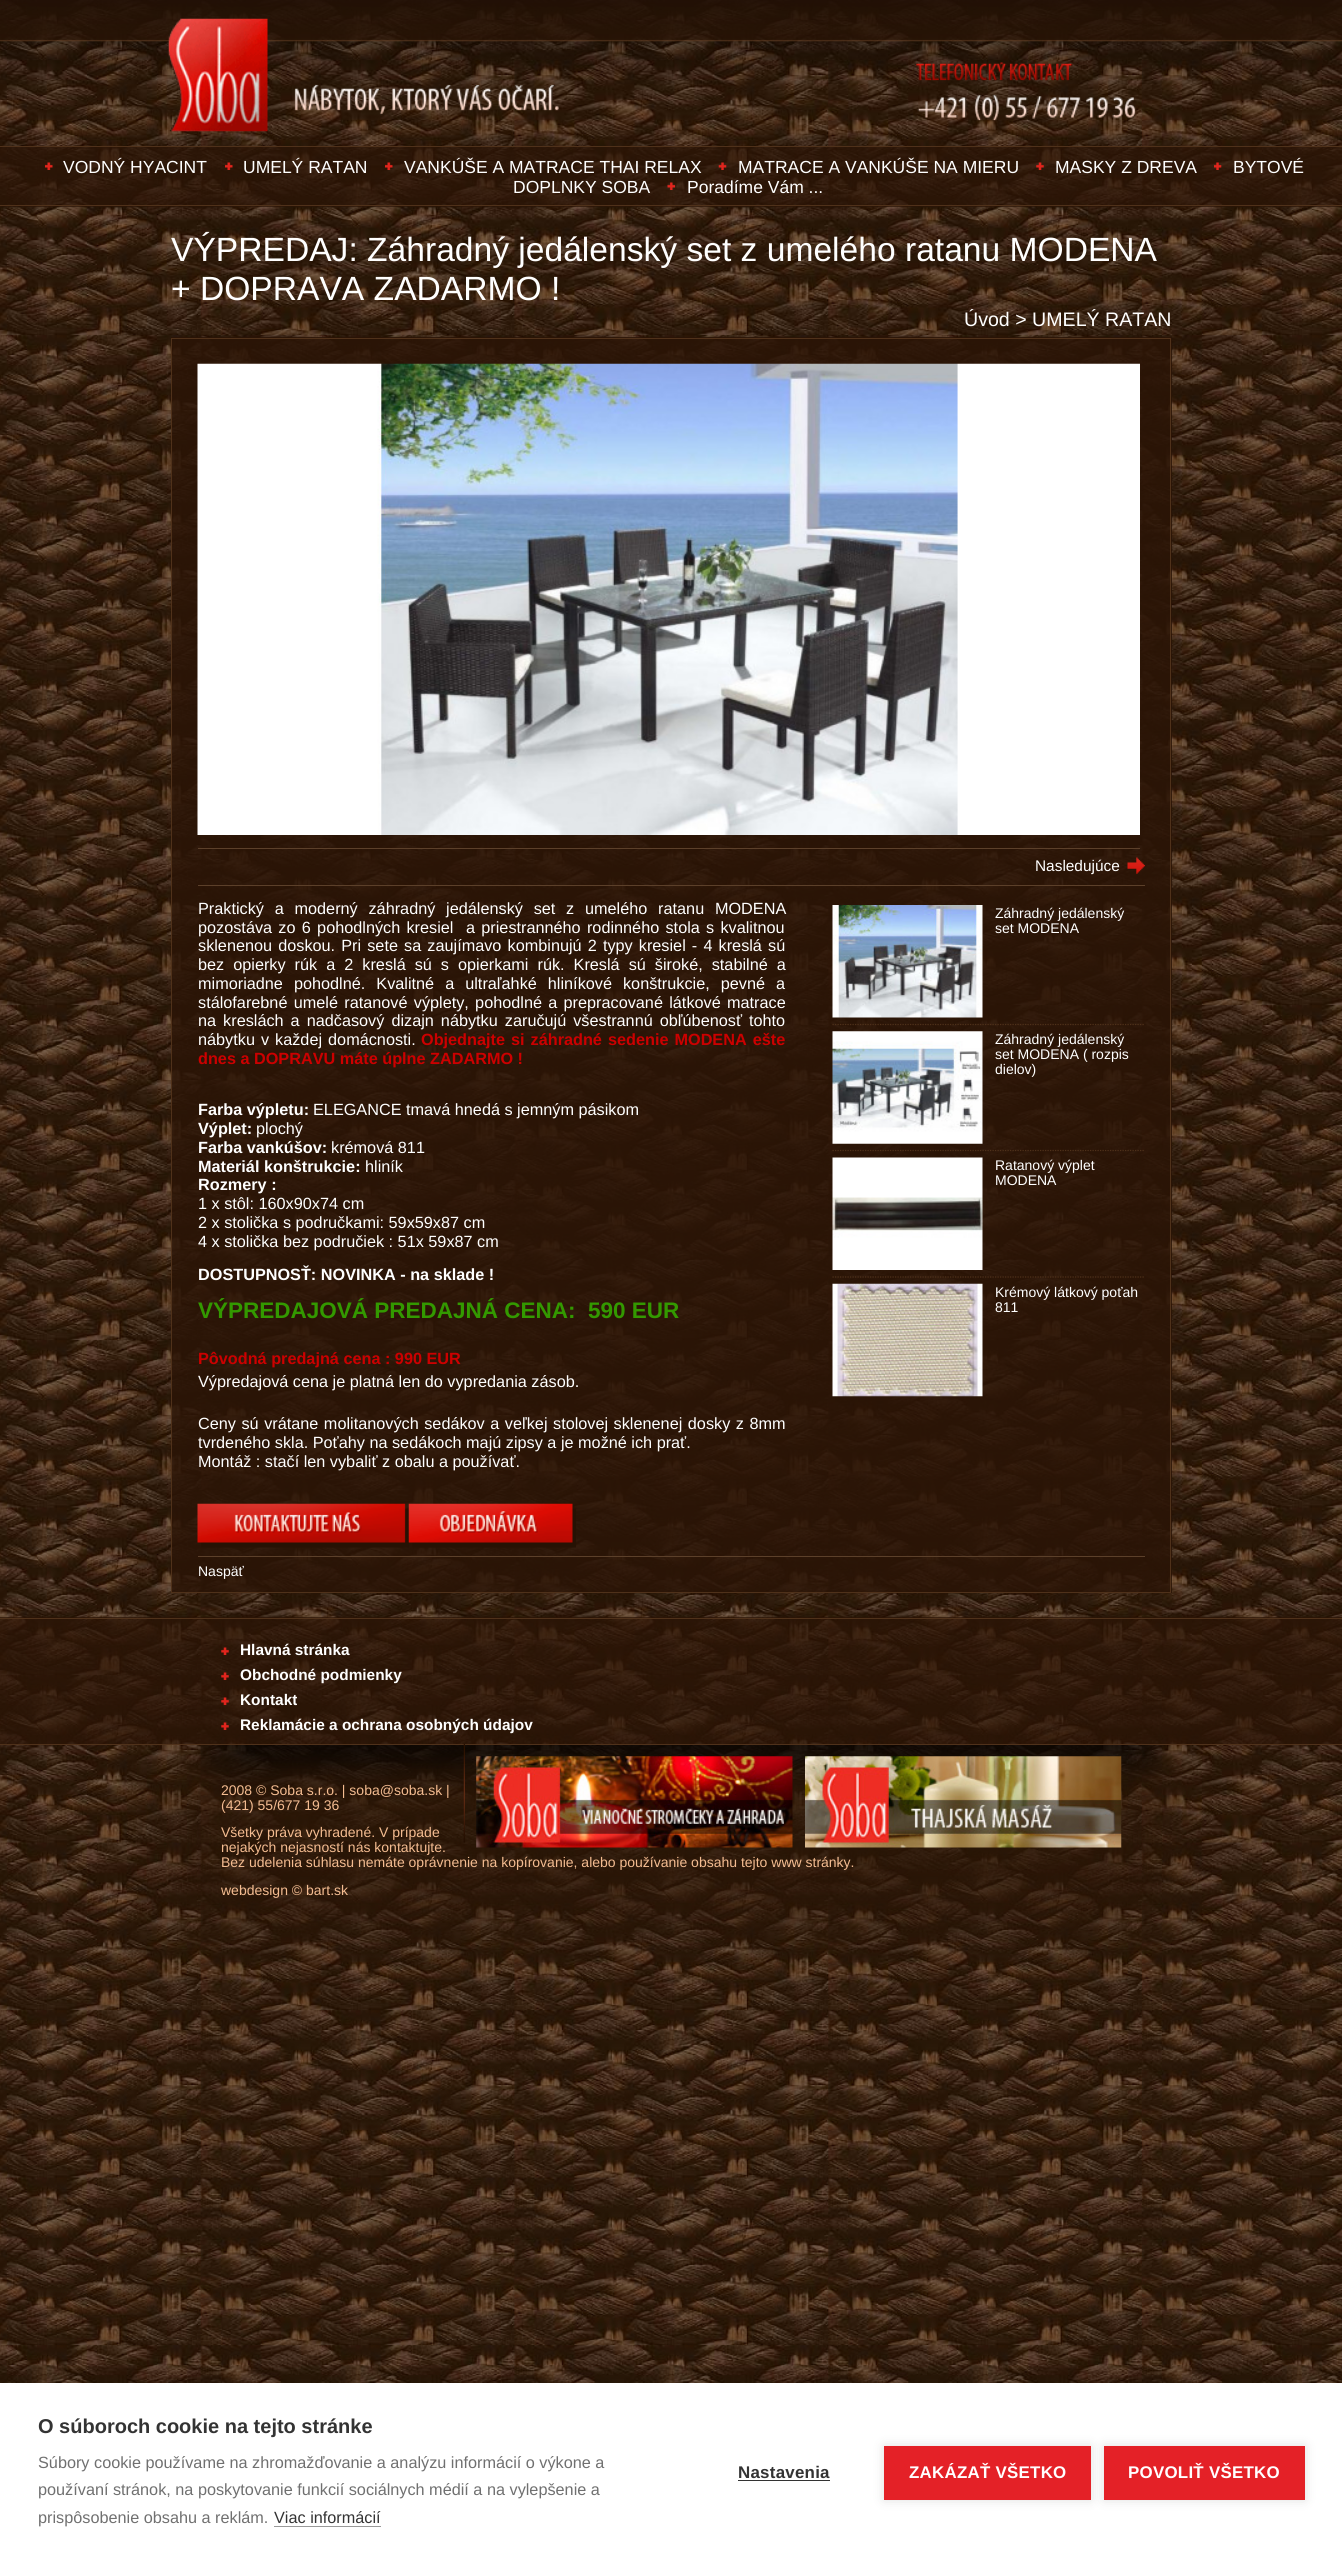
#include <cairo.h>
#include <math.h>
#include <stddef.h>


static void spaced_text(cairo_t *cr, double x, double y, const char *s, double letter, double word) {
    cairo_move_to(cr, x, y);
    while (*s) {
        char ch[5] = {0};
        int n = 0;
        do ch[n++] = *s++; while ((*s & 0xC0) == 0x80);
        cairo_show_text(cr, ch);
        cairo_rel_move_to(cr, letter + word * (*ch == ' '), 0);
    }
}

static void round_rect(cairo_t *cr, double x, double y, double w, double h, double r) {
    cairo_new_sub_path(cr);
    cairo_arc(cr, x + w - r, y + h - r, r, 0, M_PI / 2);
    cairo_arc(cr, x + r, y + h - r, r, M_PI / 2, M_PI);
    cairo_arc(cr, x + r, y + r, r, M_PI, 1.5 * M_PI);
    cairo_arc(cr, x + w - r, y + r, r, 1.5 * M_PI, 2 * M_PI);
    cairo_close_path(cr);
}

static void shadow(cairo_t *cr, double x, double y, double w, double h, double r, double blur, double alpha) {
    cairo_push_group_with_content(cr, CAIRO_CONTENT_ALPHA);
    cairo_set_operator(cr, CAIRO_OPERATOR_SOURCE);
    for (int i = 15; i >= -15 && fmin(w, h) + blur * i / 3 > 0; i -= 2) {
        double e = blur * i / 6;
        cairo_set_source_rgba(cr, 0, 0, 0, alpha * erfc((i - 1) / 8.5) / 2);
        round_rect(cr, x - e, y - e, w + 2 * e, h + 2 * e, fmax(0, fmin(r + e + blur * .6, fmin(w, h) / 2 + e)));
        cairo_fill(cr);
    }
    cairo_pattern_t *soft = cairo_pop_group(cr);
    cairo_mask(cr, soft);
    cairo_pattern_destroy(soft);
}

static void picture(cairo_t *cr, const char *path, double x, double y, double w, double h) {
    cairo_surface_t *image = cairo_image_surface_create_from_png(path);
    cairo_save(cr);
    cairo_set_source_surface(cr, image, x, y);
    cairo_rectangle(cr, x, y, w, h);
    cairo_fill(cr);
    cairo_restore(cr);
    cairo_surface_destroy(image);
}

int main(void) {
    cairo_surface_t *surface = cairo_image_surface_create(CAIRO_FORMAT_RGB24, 1342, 2562);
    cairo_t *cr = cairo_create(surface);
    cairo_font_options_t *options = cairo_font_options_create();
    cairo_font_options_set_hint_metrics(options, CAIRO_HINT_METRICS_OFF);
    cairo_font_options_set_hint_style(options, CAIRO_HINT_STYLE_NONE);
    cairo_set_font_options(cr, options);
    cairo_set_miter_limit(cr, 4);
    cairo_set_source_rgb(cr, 1, 1, 1);
    cairo_paint(cr);
    picture(cr, "img1.png", 0, 0, 1342, 2383);
    picture(cr, "img2.png", 0, 0, 1342, 84);
    picture(cr, "img3.png", 916, 62, 220, 59);
    picture(cr, "img4.png", 168, 18, 391, 114);
    cairo_set_source_rgba(cr, 0.169, 0.082, 0.024, 0.7);
    cairo_rectangle(cr, 0, 147, 1342, 60);
    cairo_fill(cr);
    cairo_set_source_rgb(cr, 0.31, 0.192, 0.102);
    cairo_rectangle(cr, 0, 146, 1342, 1);
    cairo_fill(cr);
    cairo_rectangle(cr, 0, 205, 1342, 1);
    cairo_fill(cr);
    picture(cr, "img5.png", 45, 162, 8, 8);
    cairo_select_font_face(cr, "Liberation Sans", CAIRO_FONT_SLANT_NORMAL, CAIRO_FONT_WEIGHT_NORMAL);
    cairo_set_font_size(cr, 17.5);
    cairo_set_source_rgb(cr, 1, 1, 1);
    cairo_move_to(cr, 63, 173);
    cairo_show_text(cr, "VODNÝ HYACINT");
    picture(cr, "img6.png", 225, 162, 8, 8);
    cairo_move_to(cr, 243, 173);
    cairo_show_text(cr, "UMELÝ RATAN");
    picture(cr, "img7.png", 385, 162, 8, 8);
    cairo_move_to(cr, 404, 173);
    cairo_show_text(cr, "VANKÚŠE A MATRACE THAI RELAX");
    picture(cr, "img8.png", 718, 162, 9, 8);
    cairo_move_to(cr, 738, 173);
    cairo_show_text(cr, "MATRACE A VANKÚŠE NA MIERU");
    picture(cr, "img9.png", 1036, 162, 8, 8);
    cairo_move_to(cr, 1055, 173);
    cairo_show_text(cr, "MASKY Z DREVA");
    picture(cr, "img10.png", 1214, 162, 8, 8);
    cairo_move_to(cr, 1233, 173);
    cairo_show_text(cr, "BYTOVÉ");
    cairo_move_to(cr, 513, 193);
    cairo_show_text(cr, "DOPLNKY SOBA");
    picture(cr, "img11.png", 667, 182, 8, 8);
    cairo_move_to(cr, 687, 193);
    cairo_show_text(cr, "Poradíme Vám ...");
    cairo_set_font_size(cr, 33.6);
    cairo_move_to(cr, 171, 261);
    cairo_show_text(cr, "VÝPREDAJ: Záhradný jedálenský set z umelého ratanu MODENA");
    cairo_move_to(cr, 171, 300);
    cairo_show_text(cr, "+ DOPRAVA ZADARMO !");
    cairo_set_font_size(cr, 19.6);
    cairo_move_to(cr, 964, 326);
    cairo_show_text(cr, "Úvod > UMELÝ RATAN");
    cairo_set_source_rgba(cr, 0.169, 0.082, 0.024, 0.85);
    cairo_rectangle(cr, 171, 337, 1001, 1256);
    cairo_fill(cr);
    cairo_rectangle(cr, 171.5, 338.5, 999, 1254);
    cairo_set_source_rgb(cr, 0.31, 0.192, 0.102);
    cairo_set_line_width(cr, 1);
    cairo_stroke(cr);
    picture(cr, "img12.png", 197, 363, 943, 472);
    cairo_set_source_rgb(cr, 0.361, 0.251, 0.165);
    cairo_rectangle(cr, 198, 848, 942, 1);
    cairo_fill(cr);
    cairo_rectangle(cr, 198, 885, 947, 1);
    cairo_fill(cr);
    picture(cr, "img13.png", 1127, 857, 18, 17);
    cairo_set_font_size(cr, 15.4);
    cairo_set_source_rgb(cr, 1, 1, 1);
    cairo_move_to(cr, 1035, 871);
    cairo_show_text(cr, "Nasledujúce");
    cairo_set_font_size(cr, 16.25);
    spaced_text(cr, 198, 914, "Praktický a moderný záhradný jedálenský set z umelého ratanu MODENA", 0, 6.25);
    spaced_text(cr, 198, 933, "pozostáva zo 6 pohodlných kresiel  a priestranného rodinného stola s kvalitnou", 0, 1.75);
    spaced_text(cr, 198, 951, "sklenenou doskou. Pri sete sa zaujímavo kombinujú 2 typy kresiel - 4 kreslá sú", 0, 1.6);
    spaced_text(cr, 198, 970, "bez opierky rúk a 2 kreslá sú s opierkami rúk. Kreslá sú široké, stabilné a", 0, 4.5);
    spaced_text(cr, 198, 989, "mimoriadne pohodlné. Kvalitné a ultraľahké hliníkové konštrukcie, pevné a", 0, 6.5);
    spaced_text(cr, 198, 1008, "stálofarebné umelé ratanové výplety, pohodlné a prepracované látkové matrace", 0, 1.75);
    spaced_text(cr, 198, 1026, "na kreslách a nadčasový dizajn nábytku zaručujú všestrannú obľúbenosť tohto", 0, 2.5);
    spaced_text(cr, 198, 1045, "nábytku v každej domácnosti.", 0, 1.5);
    cairo_select_font_face(cr, "Liberation Sans", CAIRO_FONT_SLANT_NORMAL, CAIRO_FONT_WEIGHT_BOLD);
    cairo_set_source_rgb(cr, 0.8, 0, 0);
    spaced_text(cr, 421, 1045, "Objednajte si záhradné sedenie MODENA ešte", 0, 1.5);
    cairo_move_to(cr, 198, 1064);
    cairo_show_text(cr, "dnes a DOPRAVU máte úplne ZADARMO !");
    cairo_set_source_rgb(cr, 1, 1, 1);
    cairo_move_to(cr, 198, 1115);
    cairo_show_text(cr, "Farba výpletu:");
    cairo_select_font_face(cr, "Liberation Sans", CAIRO_FONT_SLANT_NORMAL, CAIRO_FONT_WEIGHT_NORMAL);
    cairo_move_to(cr, 313, 1115);
    cairo_show_text(cr, "ELEGANCE tmavá hnedá s jemným pásikom");
    cairo_select_font_face(cr, "Liberation Sans", CAIRO_FONT_SLANT_NORMAL, CAIRO_FONT_WEIGHT_BOLD);
    cairo_move_to(cr, 198, 1134);
    cairo_show_text(cr, "Výplet:");
    cairo_select_font_face(cr, "Liberation Sans", CAIRO_FONT_SLANT_NORMAL, CAIRO_FONT_WEIGHT_NORMAL);
    cairo_move_to(cr, 256, 1134);
    cairo_show_text(cr, "plochý");
    cairo_select_font_face(cr, "Liberation Sans", CAIRO_FONT_SLANT_NORMAL, CAIRO_FONT_WEIGHT_BOLD);
    cairo_move_to(cr, 198, 1153);
    cairo_show_text(cr, "Farba vankúšov:");
    cairo_select_font_face(cr, "Liberation Sans", CAIRO_FONT_SLANT_NORMAL, CAIRO_FONT_WEIGHT_NORMAL);
    cairo_move_to(cr, 331, 1153);
    cairo_show_text(cr, "krémová 811");
    cairo_select_font_face(cr, "Liberation Sans", CAIRO_FONT_SLANT_NORMAL, CAIRO_FONT_WEIGHT_BOLD);
    cairo_move_to(cr, 198, 1172);
    cairo_show_text(cr, "Materiál konštrukcie:");
    cairo_select_font_face(cr, "Liberation Sans", CAIRO_FONT_SLANT_NORMAL, CAIRO_FONT_WEIGHT_NORMAL);
    cairo_move_to(cr, 365, 1172);
    cairo_show_text(cr, "hliník");
    cairo_select_font_face(cr, "Liberation Sans", CAIRO_FONT_SLANT_NORMAL, CAIRO_FONT_WEIGHT_BOLD);
    cairo_move_to(cr, 198, 1190);
    cairo_show_text(cr, "Rozmery :");
    cairo_select_font_face(cr, "Liberation Sans", CAIRO_FONT_SLANT_NORMAL, CAIRO_FONT_WEIGHT_NORMAL);
    cairo_move_to(cr, 198, 1209);
    cairo_show_text(cr, "1 x stôl: 160x90x74 cm");
    cairo_move_to(cr, 198, 1228);
    cairo_show_text(cr, "2 x stolička s područkami: 59x59x87 cm");
    cairo_move_to(cr, 198, 1247);
    cairo_show_text(cr, "4 x stolička bez područiek : 51x 59x87 cm");
    cairo_select_font_face(cr, "Liberation Sans", CAIRO_FONT_SLANT_NORMAL, CAIRO_FONT_WEIGHT_BOLD);
    cairo_move_to(cr, 198, 1280);
    cairo_show_text(cr, "DOSTUPNOSŤ: NOVINKA - na sklade !");
    cairo_set_font_size(cr, 22.5);
    cairo_set_source_rgb(cr, 0.2, 0.6, 0);
    cairo_move_to(cr, 198, 1318);
    cairo_show_text(cr, "VÝPREDAJOVÁ PREDAJNÁ CENA:  590 EUR");
    cairo_set_font_size(cr, 16.25);
    cairo_set_source_rgb(cr, 0.8, 0, 0);
    cairo_move_to(cr, 198, 1364);
    cairo_show_text(cr, "Pôvodná predajná cena : 990 EUR");
    cairo_select_font_face(cr, "Liberation Sans", CAIRO_FONT_SLANT_NORMAL, CAIRO_FONT_WEIGHT_NORMAL);
    cairo_set_source_rgb(cr, 1, 1, 1);
    cairo_move_to(cr, 198, 1387);
    cairo_show_text(cr, "Výpredajová cena je platná len do vypredania zásob.");
    spaced_text(cr, 198, 1429, "Ceny sú vrátane molitanových sedákov a veľkej stolovej sklenenej dosky z 8mm", 0, 1);
    cairo_move_to(cr, 198, 1448);
    cairo_show_text(cr, "tvrdeného skla. Poťahy na sedákoch majú zipsy a je možné ich prať.");
    cairo_move_to(cr, 198, 1467);
    cairo_show_text(cr, "Montáž : stačí len vybaliť z obalu a používať.");
    picture(cr, "img14.png", 197, 1503, 212, 45);
    picture(cr, "img15.png", 408, 1503, 168, 45);
    cairo_new_path(cr);
    cairo_move_to(cr, 832.5, 1024.5);
    cairo_line_to(cr, 1145, 1024.5);
    cairo_set_source_rgb(cr, 0.31, 0.192, 0.102);
    cairo_set_line_width(cr, 1.2);
    cairo_set_dash(cr, (double[]){1.25, 1.25}, 2, 0);
    cairo_stroke(cr);
    picture(cr, "img16.png", 832, 905, 151, 113);
    cairo_set_font_size(cr, 14);
    cairo_set_source_rgb(cr, 1, 1, 1);
    cairo_move_to(cr, 995, 918);
    cairo_show_text(cr, "Záhradný jedálenský");
    cairo_move_to(cr, 995, 933);
    cairo_show_text(cr, "set MODENA");
    cairo_new_path(cr);
    cairo_move_to(cr, 832.5, 1150.5);
    cairo_line_to(cr, 1145, 1150.5);
    cairo_set_source_rgb(cr, 0.31, 0.192, 0.102);
    cairo_stroke(cr);
    picture(cr, "img17.png", 832, 1031, 151, 113);
    cairo_set_source_rgb(cr, 1, 1, 1);
    cairo_move_to(cr, 995, 1044);
    cairo_show_text(cr, "Záhradný jedálenský");
    cairo_move_to(cr, 995, 1059);
    cairo_show_text(cr, "set MODENA ( rozpis");
    cairo_move_to(cr, 995, 1074);
    cairo_show_text(cr, "dielov)");
    cairo_new_path(cr);
    cairo_move_to(cr, 832.5, 1277);
    cairo_line_to(cr, 1145, 1277);
    cairo_set_source_rgb(cr, 0.31, 0.192, 0.102);
    cairo_stroke(cr);
    picture(cr, "img18.png", 832, 1157, 151, 113);
    cairo_set_source_rgb(cr, 1, 1, 1);
    cairo_move_to(cr, 995, 1170);
    cairo_show_text(cr, "Ratanový výplet");
    cairo_move_to(cr, 995, 1185);
    cairo_show_text(cr, "MODENA");
    picture(cr, "img19.png", 832, 1283, 151, 114);
    cairo_move_to(cr, 995, 1297);
    cairo_show_text(cr, "Krémový látkový poťah");
    cairo_move_to(cr, 995, 1312);
    cairo_show_text(cr, "811");
    cairo_set_source_rgb(cr, 0.361, 0.251, 0.165);
    cairo_rectangle(cr, 198, 1556, 947, 1);
    cairo_fill(cr);
    cairo_set_source_rgb(cr, 1, 1, 1);
    cairo_move_to(cr, 198, 1576);
    cairo_show_text(cr, "Naspäť");
    cairo_set_source_rgba(cr, 0.169, 0.082, 0.024, 0.7);
    cairo_rectangle(cr, 0, 1617, 1342, 127);
    cairo_fill(cr);
    cairo_set_source_rgb(cr, 0.31, 0.192, 0.102);
    cairo_rectangle(cr, 0, 1618, 1342, 1);
    cairo_fill(cr);
    cairo_rectangle(cr, 0, 1744, 1342, 1);
    cairo_fill(cr);
    picture(cr, "img20.png", 221, 1647, 8, 8);
    cairo_select_font_face(cr, "Liberation Sans", CAIRO_FONT_SLANT_NORMAL, CAIRO_FONT_WEIGHT_BOLD);
    cairo_set_font_size(cr, 15.4);
    cairo_set_source_rgb(cr, 1, 1, 1);
    cairo_move_to(cr, 240, 1655);
    cairo_show_text(cr, "Hlavná stránka");
    picture(cr, "img21.png", 221, 1672, 8, 8);
    cairo_move_to(cr, 240, 1680);
    cairo_show_text(cr, "Obchodné podmienky");
    picture(cr, "img22.png", 221, 1697, 8, 8);
    cairo_move_to(cr, 240, 1705);
    cairo_show_text(cr, "Kontakt");
    picture(cr, "img23.png", 221, 1722, 8, 8);
    cairo_move_to(cr, 240, 1730);
    cairo_show_text(cr, "Reklamácie a ochrana osobných údajov");
    picture(cr, "img27.png", 131, 1745, 1080, 222);
    picture(cr, "img24.png", 463, 1744, 2, 99);
    picture(cr, "img25.png", 476, 1756, 317, 92);
    picture(cr, "img26.png", 805, 1756, 317, 92);
    cairo_select_font_face(cr, "Liberation Sans", CAIRO_FONT_SLANT_NORMAL, CAIRO_FONT_WEIGHT_NORMAL);
    cairo_set_font_size(cr, 14);
    cairo_set_source_rgb(cr, 0.957, 0.737, 0.569);
    cairo_move_to(cr, 221, 1795);
    cairo_show_text(cr, "2008 © Soba s.r.o. | soba@soba.sk |");
    cairo_move_to(cr, 221, 1810);
    cairo_show_text(cr, "(421) 55/677 19 36");
    cairo_move_to(cr, 221, 1837);
    cairo_show_text(cr, "Všetky práva vyhradené. V prípade");
    cairo_move_to(cr, 221, 1852);
    cairo_show_text(cr, "nejakých nejasností nás kontaktujte.");
    cairo_move_to(cr, 221, 1867);
    cairo_show_text(cr, "Bez udelenia súhlasu nemáte oprávnenie na kopírovanie, alebo používanie obsahu tejto www stránky.");
    cairo_move_to(cr, 221, 1895);
    cairo_show_text(cr, "webdesign © bart.sk");
    cairo_set_source_rgb(cr, 0, 0, 0);
    shadow(cr, 0, 2383, 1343, 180, 0, 12.5, 0.1);
    cairo_set_source_rgb(cr, 1, 1, 1);
    cairo_rectangle(cr, 0, 2383, 1342, 179);
    cairo_fill(cr);
    cairo_select_font_face(cr, "Liberation Sans", CAIRO_FONT_SLANT_NORMAL, CAIRO_FONT_WEIGHT_BOLD);
    cairo_set_font_size(cr, 20);
    cairo_set_source_rgb(cr, 0.2, 0.2, 0.2);
    cairo_move_to(cr, 38, 2433);
    cairo_show_text(cr, "O súboroch cookie na tejto stránke");
    cairo_select_font_face(cr, "Liberation Sans", CAIRO_FONT_SLANT_NORMAL, CAIRO_FONT_WEIGHT_NORMAL);
    cairo_set_font_size(cr, 16.25);
    cairo_set_source_rgb(cr, 0.439, 0.439, 0.439);
    cairo_move_to(cr, 38, 2468);
    cairo_show_text(cr, "Súbory cookie používame na zhromažďovanie a analýzu informácií o výkone a");
    cairo_move_to(cr, 38, 2495);
    cairo_show_text(cr, "používaní stránok, na poskytovanie funkcií sociálnych médií a na vylepšenie a");
    cairo_move_to(cr, 38, 2523);
    cairo_show_text(cr, "prispôsobenie obsahu a reklám.");
    cairo_set_source_rgb(cr, 0.2, 0.2, 0.2);
    cairo_move_to(cr, 274, 2523);
    cairo_show_text(cr, "Viac informácií");
    cairo_set_source_rgb(cr, 0.6, 0.6, 0.6);
    cairo_rectangle(cr, 274, 2526, 107, 1);
    cairo_fill(cr);
    cairo_select_font_face(cr, "Liberation Sans", CAIRO_FONT_SLANT_NORMAL, CAIRO_FONT_WEIGHT_BOLD);
    cairo_set_font_size(cr, 16.9);
    cairo_set_source_rgb(cr, 0.2, 0.2, 0.2);
    spaced_text(cr, 738, 2478, "Nastavenia", 0.25, 0);
    cairo_rectangle(cr, 738, 2480, 92, 1);
    cairo_fill(cr);
    cairo_set_source_rgb(cr, 0, 0, 0);
    shadow(cr, 884, 2446, 207, 54, 0, 6, 0.12);
    cairo_set_source_rgb(cr, 0.894, 0.129, 0.153);
    cairo_rectangle(cr, 884, 2446, 207, 54);
    cairo_fill(cr);
    cairo_set_source_rgb(cr, 1, 1, 1);
    spaced_text(cr, 909, 2478, "ZAKÁZAŤ VŠETKO", 0.25, 0);
    cairo_set_source_rgb(cr, 0, 0, 0);
    shadow(cr, 1104, 2446, 201, 54, 0, 6, 0.12);
    cairo_set_source_rgb(cr, 0.894, 0.129, 0.153);
    cairo_rectangle(cr, 1104, 2446, 201, 54);
    cairo_fill(cr);
    cairo_set_source_rgb(cr, 1, 1, 1);
    spaced_text(cr, 1128, 2478, "POVOLIŤ VŠETKO", 0.25, 0);
    cairo_surface_write_to_png(surface, "page.png");
    cairo_font_options_destroy(options);
    cairo_destroy(cr);
    cairo_surface_destroy(surface);
    return 0;
}
